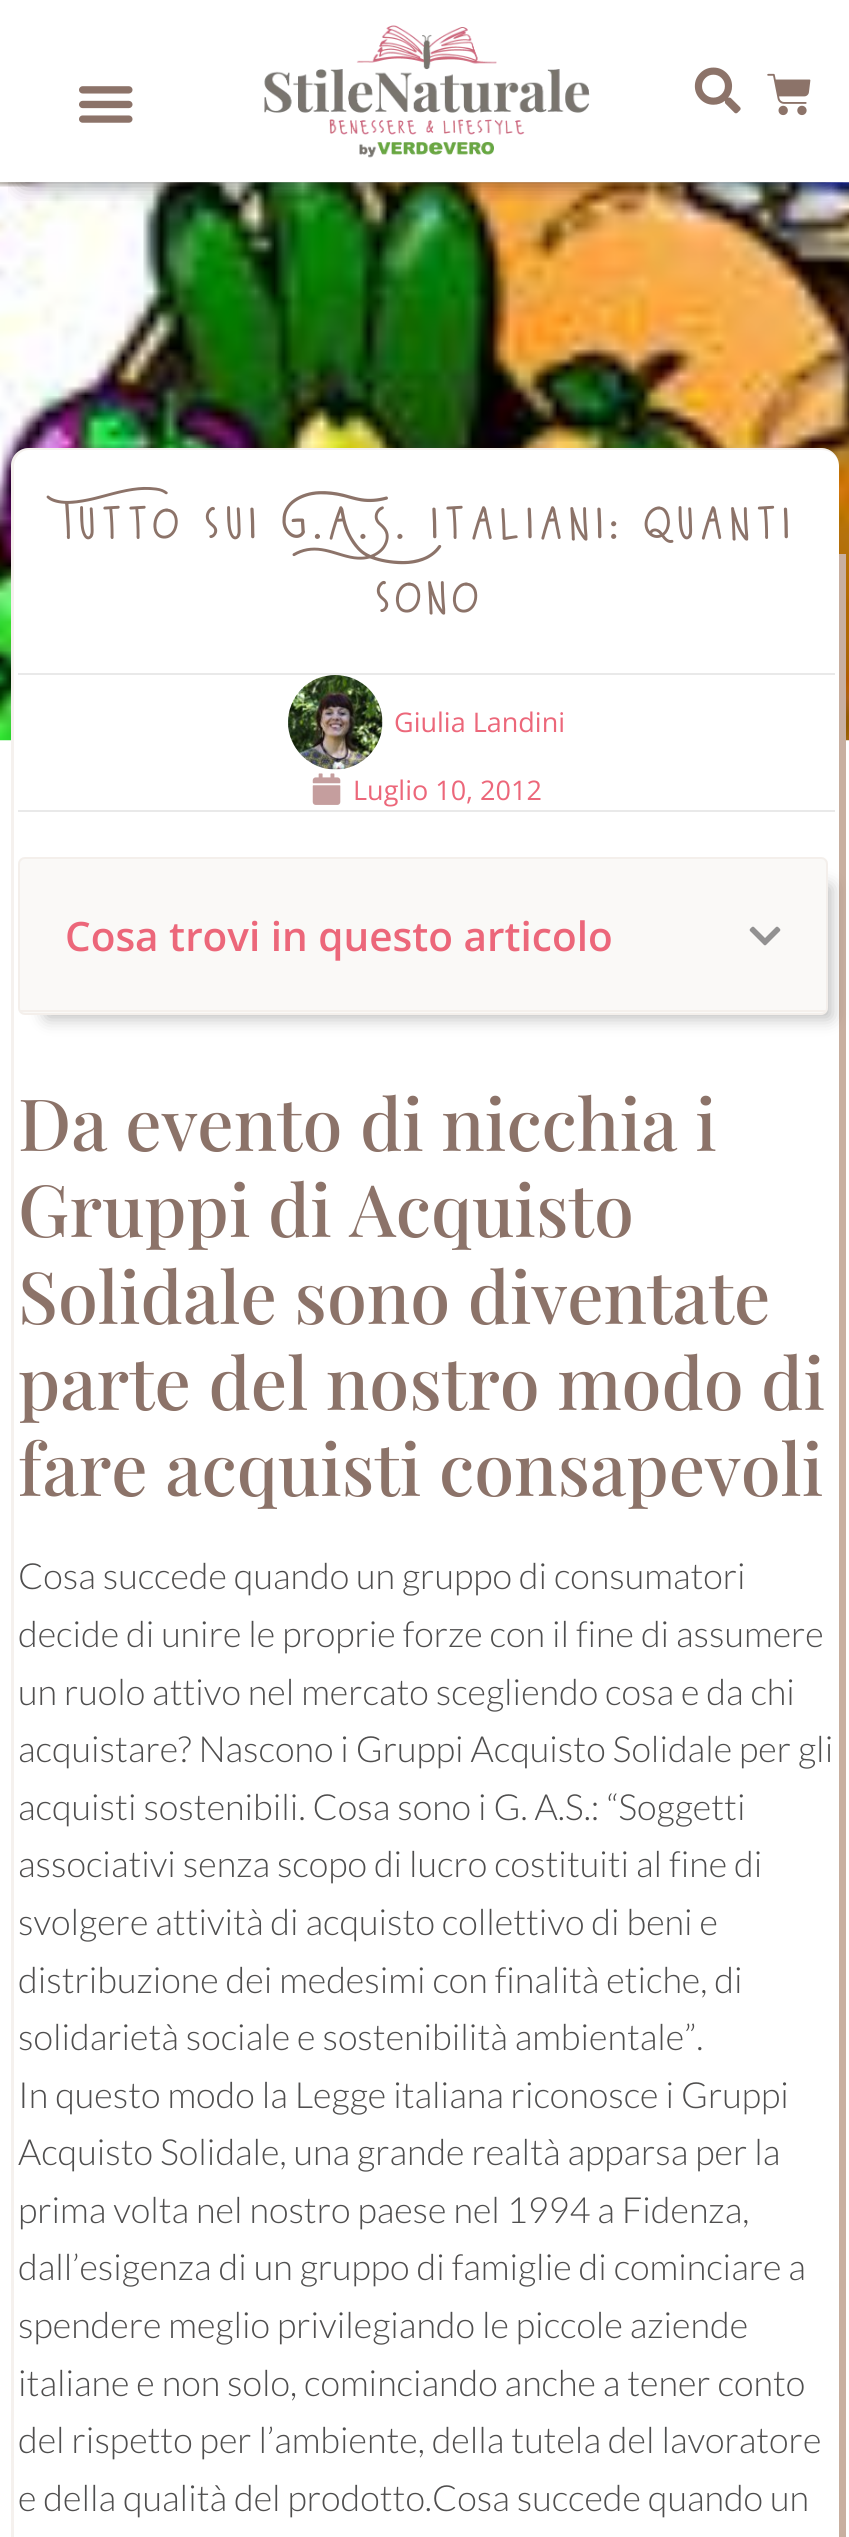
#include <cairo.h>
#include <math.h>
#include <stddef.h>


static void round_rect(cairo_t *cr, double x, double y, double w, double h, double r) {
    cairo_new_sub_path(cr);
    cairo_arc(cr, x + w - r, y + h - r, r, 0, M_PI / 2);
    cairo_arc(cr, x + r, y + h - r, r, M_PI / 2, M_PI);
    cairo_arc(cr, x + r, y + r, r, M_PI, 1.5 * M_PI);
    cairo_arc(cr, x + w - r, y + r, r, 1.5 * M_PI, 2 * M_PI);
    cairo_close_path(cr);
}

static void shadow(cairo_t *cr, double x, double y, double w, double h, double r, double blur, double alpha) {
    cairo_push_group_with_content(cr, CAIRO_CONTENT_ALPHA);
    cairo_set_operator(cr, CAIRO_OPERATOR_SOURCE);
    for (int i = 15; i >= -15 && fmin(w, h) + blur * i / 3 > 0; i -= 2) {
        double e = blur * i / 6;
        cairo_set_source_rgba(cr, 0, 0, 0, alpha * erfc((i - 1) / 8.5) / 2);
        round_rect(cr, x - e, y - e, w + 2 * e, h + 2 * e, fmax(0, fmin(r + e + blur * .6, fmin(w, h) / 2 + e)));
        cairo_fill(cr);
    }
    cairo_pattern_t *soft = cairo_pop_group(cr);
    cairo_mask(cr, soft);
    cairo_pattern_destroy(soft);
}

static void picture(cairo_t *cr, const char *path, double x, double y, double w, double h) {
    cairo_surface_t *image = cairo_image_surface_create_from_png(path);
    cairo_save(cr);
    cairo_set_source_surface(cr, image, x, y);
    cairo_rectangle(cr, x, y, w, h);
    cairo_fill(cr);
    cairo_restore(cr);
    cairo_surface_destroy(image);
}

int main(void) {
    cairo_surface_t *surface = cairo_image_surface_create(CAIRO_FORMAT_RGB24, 849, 2537);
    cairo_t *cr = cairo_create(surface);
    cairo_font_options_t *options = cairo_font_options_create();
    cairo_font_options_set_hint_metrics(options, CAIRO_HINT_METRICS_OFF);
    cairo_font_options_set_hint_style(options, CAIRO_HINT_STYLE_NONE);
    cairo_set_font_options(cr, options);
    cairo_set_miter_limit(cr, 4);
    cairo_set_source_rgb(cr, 1, 1, 1);
    cairo_paint(cr);
    picture(cr, "img5.png", 0, 182, 849, 559);
    cairo_save(cr);
    cairo_rectangle(cr, 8, 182, 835, 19);
    cairo_clip(cr);
    cairo_set_source_rgb(cr, 0, 0, 0);
    shadow(cr, 23, 45, 805, 137, 0, 11, 0.5);
    cairo_restore(cr);
    picture(cr, "img1.png", 79, 86, 54, 37);
    picture(cr, "img2.png", 264, 25, 326, 133);
    picture(cr, "img3.png", 694, 67, 47, 47);
    picture(cr, "img4.png", 767, 73, 44, 43);
    cairo_set_source_rgb(cr, 0.784, 0.686, 0.627);
    cairo_new_path(cr);
    cairo_move_to(cr, 117, 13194);
    cairo_line_to(cr, 117, 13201);
    cairo_line_to(cr, 846, 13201);
    cairo_line_to(cr, 846, 554);
    cairo_line_to(cr, 839, 554);
    cairo_line_to(cr, 839, 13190);
    cairo_curve_to(cr, 839, 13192, 837, 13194, 835, 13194);
    cairo_close_path(cr);
    cairo_fill(cr);
    cairo_set_source_rgb(cr, 1, 1, 1);
    cairo_new_path(cr);
    cairo_move_to(cr, 29, 448);
    cairo_line_to(cr, 821, 448);
    cairo_curve_to(cr, 831, 448, 839, 456, 839, 466);
    cairo_line_to(cr, 839, 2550);
    cairo_curve_to(cr, 839, 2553, 837, 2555, 834, 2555);
    cairo_line_to(cr, 16, 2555);
    cairo_curve_to(cr, 13, 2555, 11, 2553, 11, 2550);
    cairo_line_to(cr, 11, 466);
    cairo_curve_to(cr, 11, 456, 19, 448, 29, 448);
    cairo_close_path(cr);
    cairo_fill(cr);
    cairo_set_source_rgba(cr, 0.89, 0.843, 0.812, 0.35);
    cairo_set_fill_rule(cr, CAIRO_FILL_RULE_EVEN_ODD);
    cairo_new_path(cr);
    cairo_move_to(cr, 29, 448);
    cairo_line_to(cr, 821, 448);
    cairo_curve_to(cr, 831, 448, 839, 456, 839, 466);
    cairo_line_to(cr, 839, 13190);
    cairo_curve_to(cr, 839, 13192, 837, 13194, 835, 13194);
    cairo_line_to(cr, 16, 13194);
    cairo_curve_to(cr, 13, 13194, 11, 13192, 11, 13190);
    cairo_line_to(cr, 11, 466);
    cairo_curve_to(cr, 11, 456, 19, 448, 29, 448);
    cairo_close_path(cr);
    cairo_move_to(cr, 29, 450);
    cairo_line_to(cr, 821, 450);
    cairo_curve_to(cr, 831, 450, 839, 457, 839, 466);
    cairo_line_to(cr, 839, 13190);
    cairo_curve_to(cr, 839, 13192, 837, 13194, 835, 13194);
    cairo_line_to(cr, 16, 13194);
    cairo_curve_to(cr, 15, 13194, 14, 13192, 14, 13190);
    cairo_line_to(cr, 14, 466);
    cairo_curve_to(cr, 14, 457, 21, 450, 29, 450);
    cairo_close_path(cr);
    cairo_fill(cr);
    cairo_select_font_face(cr, "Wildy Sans", CAIRO_FONT_SLANT_NORMAL, CAIRO_FONT_WEIGHT_NORMAL);
    cairo_set_font_size(cr, 67.5);
    cairo_set_source_rgb(cr, 0.549, 0.451, 0.412);
    cairo_move_to(cr, 59, 539);
    cairo_show_text(cr, "Tutto sui G.A.S. italiani: quanti");
    cairo_move_to(cr, 372, 613);
    cairo_show_text(cr, "sono");
    cairo_set_source_rgb(cr, 0.914, 0.914, 0.914);
    cairo_rectangle(cr, 18, 673, 817, 2);
    cairo_fill(cr);
    cairo_rectangle(cr, 18, 810, 817, 2);
    cairo_fill(cr);
    picture(cr, "img6.png", 288, 675, 95, 95);
    cairo_select_font_face(cr, "Open Sans", CAIRO_FONT_SLANT_NORMAL, CAIRO_FONT_WEIGHT_NORMAL);
    cairo_set_font_size(cr, 27);
    cairo_set_source_rgb(cr, 0.922, 0.404, 0.478);
    cairo_move_to(cr, 394, 732);
    cairo_show_text(cr, "Giulia Landini");
    picture(cr, "img7.png", 312, 773, 29, 32);
    cairo_move_to(cr, 353, 800);
    cairo_show_text(cr, "Luglio 10, 2012");
    cairo_set_source_rgb(cr, 0, 0, 0);
    shadow(cr, 47, 887, 783, 130, 0, 9, 0.3);
    cairo_set_source_rgb(cr, 0.98, 0.973, 0.965);
    round_rect(cr, 18, 857, 810, 158, 7);
    cairo_fill(cr);
    round_rect(cr, 19, 858, 808, 156, 6);
    cairo_set_source_rgba(cr, 0.784, 0.686, 0.627, 0.14);
    cairo_stroke(cr);
    cairo_save(cr);
    cairo_set_fill_rule(cr, CAIRO_FILL_RULE_WINDING);
    round_rect(cr, 20, 860, 806, 153, 5);
    cairo_clip(cr);
    cairo_rectangle(cr, 20, 1010, 806, 2);
    cairo_fill(cr);
    cairo_restore(cr);
    cairo_select_font_face(cr, "Open Sans SemiBold", CAIRO_FONT_SLANT_NORMAL, CAIRO_FONT_WEIGHT_NORMAL);
    cairo_set_font_size(cr, 40.5);
    cairo_set_source_rgb(cr, 0.922, 0.404, 0.478);
    cairo_move_to(cr, 65, 951);
    cairo_show_text(cr, "Cosa trovi in questo articolo");
    picture(cr, "img8.png", 749, 926, 32, 20);
    cairo_select_font_face(cr, "Playfair Display Medium", CAIRO_FONT_SLANT_NORMAL, CAIRO_FONT_WEIGHT_NORMAL);
    cairo_set_font_size(cr, 72);
    cairo_set_source_rgb(cr, 0.549, 0.451, 0.412);
    cairo_move_to(cr, 18, 1151);
    cairo_show_text(cr, "Da evento di nicchia i");
    cairo_move_to(cr, 18, 1237);
    cairo_show_text(cr, "Gruppi di Acquisto");
    cairo_move_to(cr, 18, 1324);
    cairo_show_text(cr, "Solidale sono diventate");
    cairo_move_to(cr, 18, 1410);
    cairo_show_text(cr, "parte del nostro modo di");
    cairo_move_to(cr, 18, 1496);
    cairo_show_text(cr, "fare acquisti consapevoli");
    cairo_select_font_face(cr, "Lato Light", CAIRO_FONT_SLANT_NORMAL, CAIRO_FONT_WEIGHT_NORMAL);
    cairo_set_font_size(cr, 36);
    cairo_set_source_rgb(cr, 0.31, 0.306, 0.306);
    cairo_move_to(cr, 18, 1589);
    cairo_show_text(cr, "Cosa succede quando un gruppo di consumatori");
    cairo_move_to(cr, 18, 1647);
    cairo_show_text(cr, "decide di unire le proprie forze con il fine di assumere");
    cairo_move_to(cr, 18, 1705);
    cairo_show_text(cr, "un ruolo attivo nel mercato scegliendo cosa e da chi");
    cairo_move_to(cr, 18, 1762);
    cairo_show_text(cr, "acquistare? Nascono i Gruppi Acquisto Solidale per gli");
    cairo_move_to(cr, 18, 1820);
    cairo_show_text(cr, "acquisti sostenibili. Cosa sono i G. A.S.: “Soggetti");
    cairo_move_to(cr, 18, 1877);
    cairo_show_text(cr, "associativi senza scopo di lucro costituiti al fine di");
    cairo_move_to(cr, 18, 1935);
    cairo_show_text(cr, "svolgere attività di acquisto collettivo di beni e");
    cairo_move_to(cr, 18, 1993);
    cairo_show_text(cr, "distribuzione dei medesimi con finalità etiche, di");
    cairo_move_to(cr, 18, 2050);
    cairo_show_text(cr, "solidarietà sociale e sostenibilità ambientale”.");
    cairo_move_to(cr, 18, 2108);
    cairo_show_text(cr, "In questo modo la Legge italiana riconosce i Gruppi");
    cairo_move_to(cr, 18, 2165);
    cairo_show_text(cr, "Acquisto Solidale, una grande realtà apparsa per la");
    cairo_move_to(cr, 18, 2223);
    cairo_show_text(cr, "prima volta nel nostro paese nel 1994 a Fidenza,");
    cairo_move_to(cr, 18, 2280);
    cairo_show_text(cr, "dall’esigenza di un gruppo di famiglie di cominciare a");
    cairo_move_to(cr, 18, 2338);
    cairo_show_text(cr, "spendere meglio privilegiando le piccole aziende");
    cairo_move_to(cr, 18, 2396);
    cairo_show_text(cr, "italiane e non solo, cominciando anche a tener conto");
    cairo_move_to(cr, 18, 2453);
    cairo_show_text(cr, "del rispetto per l’ambiente, della tutela del lavoratore");
    cairo_move_to(cr, 18, 2511);
    cairo_show_text(cr, "e della qualità del prodotto.Cosa succede quando un");
    cairo_surface_write_to_png(surface, "page.png");
    cairo_font_options_destroy(options);
    cairo_destroy(cr);
    cairo_surface_destroy(surface);
    return 0;
}
